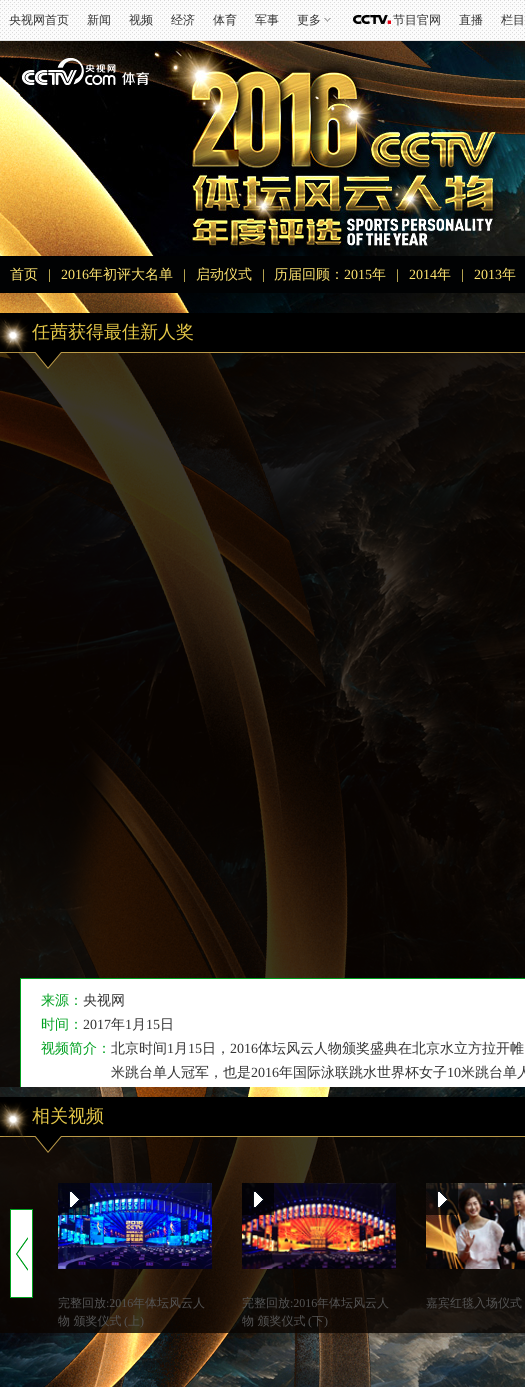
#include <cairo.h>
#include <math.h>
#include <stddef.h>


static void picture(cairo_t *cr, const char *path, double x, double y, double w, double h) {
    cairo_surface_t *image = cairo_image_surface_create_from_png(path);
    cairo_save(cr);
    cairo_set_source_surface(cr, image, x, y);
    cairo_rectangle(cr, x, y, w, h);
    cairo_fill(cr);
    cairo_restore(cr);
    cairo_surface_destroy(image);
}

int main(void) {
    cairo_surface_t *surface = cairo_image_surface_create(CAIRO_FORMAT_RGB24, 525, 1387);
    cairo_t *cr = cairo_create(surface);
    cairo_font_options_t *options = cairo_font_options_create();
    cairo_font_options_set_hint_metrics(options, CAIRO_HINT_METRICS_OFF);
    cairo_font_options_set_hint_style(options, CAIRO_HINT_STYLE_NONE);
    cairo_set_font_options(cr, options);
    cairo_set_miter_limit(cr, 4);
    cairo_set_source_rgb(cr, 1, 1, 1);
    cairo_paint(cr);
    picture(cr, "img1.png", 0, 0, 525, 40);
    cairo_set_source_rgb(cr, 0.882, 0.882, 0.882);
    cairo_rectangle(cr, 0, 40, 525, 1);
    cairo_fill(cr);
    cairo_select_font_face(cr, "WenQuanYi Zen Hei Medium", CAIRO_FONT_SLANT_NORMAL, CAIRO_FONT_WEIGHT_NORMAL);
    cairo_set_font_size(cr, 12);
    cairo_set_source_rgb(cr, 0.2, 0.2, 0.2);
    cairo_move_to(cr, 9, 24);
    cairo_show_text(cr, "央视网首页");
    cairo_move_to(cr, 87, 24);
    cairo_show_text(cr, "新闻");
    cairo_move_to(cr, 129, 24);
    cairo_show_text(cr, "视频");
    cairo_move_to(cr, 171, 24);
    cairo_show_text(cr, "经济");
    cairo_move_to(cr, 213, 24);
    cairo_show_text(cr, "体育");
    cairo_move_to(cr, 255, 24);
    cairo_show_text(cr, "军事");
    cairo_move_to(cr, 297, 24);
    cairo_show_text(cr, "更多");
    picture(cr, "img2.png", 324, 18, 7, 4);
    picture(cr, "img3.png", 353, 15, 38, 9);
    cairo_move_to(cr, 393, 24);
    cairo_show_text(cr, "节目官网");
    cairo_move_to(cr, 459, 24);
    cairo_show_text(cr, "直播");
    cairo_move_to(cr, 501, 24);
    cairo_show_text(cr, "栏目");
    picture(cr, "img4.png", 0, 41, 525, 1346);
    picture(cr, "img5.png", 20, 41, 505, 215);
    cairo_set_source_rgb(cr, 0.004, 0.008, 0.012);
    cairo_rectangle(cr, 0, 256, 525, 37);
    cairo_fill(cr);
    cairo_set_font_size(cr, 14);
    cairo_set_source_rgb(cr, 1, 0.894, 0.439);
    cairo_move_to(cr, 10, 279);
    cairo_show_text(cr, "首页");
    cairo_select_font_face(cr, "Liberation Serif", CAIRO_FONT_SLANT_NORMAL, CAIRO_FONT_WEIGHT_NORMAL);
    cairo_move_to(cr, 48, 279);
    cairo_show_text(cr, "|");
    cairo_move_to(cr, 61, 279);
    cairo_show_text(cr, "2016");
    cairo_select_font_face(cr, "WenQuanYi Zen Hei Medium", CAIRO_FONT_SLANT_NORMAL, CAIRO_FONT_WEIGHT_NORMAL);
    cairo_move_to(cr, 89, 279);
    cairo_show_text(cr, "年初评大名单");
    cairo_select_font_face(cr, "Liberation Serif", CAIRO_FONT_SLANT_NORMAL, CAIRO_FONT_WEIGHT_NORMAL);
    cairo_move_to(cr, 183, 279);
    cairo_show_text(cr, "|");
    cairo_select_font_face(cr, "WenQuanYi Zen Hei Medium", CAIRO_FONT_SLANT_NORMAL, CAIRO_FONT_WEIGHT_NORMAL);
    cairo_move_to(cr, 196, 279);
    cairo_show_text(cr, "启动仪式");
    cairo_select_font_face(cr, "Liberation Serif", CAIRO_FONT_SLANT_NORMAL, CAIRO_FONT_WEIGHT_NORMAL);
    cairo_move_to(cr, 262, 279);
    cairo_show_text(cr, "|");
    cairo_select_font_face(cr, "WenQuanYi Zen Hei Medium", CAIRO_FONT_SLANT_NORMAL, CAIRO_FONT_WEIGHT_NORMAL);
    cairo_move_to(cr, 274, 279);
    cairo_show_text(cr, "历届回顾：");
    cairo_select_font_face(cr, "Liberation Serif", CAIRO_FONT_SLANT_NORMAL, CAIRO_FONT_WEIGHT_NORMAL);
    cairo_move_to(cr, 344, 279);
    cairo_show_text(cr, "2015");
    cairo_select_font_face(cr, "WenQuanYi Zen Hei Medium", CAIRO_FONT_SLANT_NORMAL, CAIRO_FONT_WEIGHT_NORMAL);
    cairo_move_to(cr, 372, 279);
    cairo_show_text(cr, "年");
    cairo_select_font_face(cr, "Liberation Serif", CAIRO_FONT_SLANT_NORMAL, CAIRO_FONT_WEIGHT_NORMAL);
    cairo_move_to(cr, 396, 279);
    cairo_show_text(cr, "|");
    cairo_move_to(cr, 409, 279);
    cairo_show_text(cr, "2014");
    cairo_select_font_face(cr, "WenQuanYi Zen Hei Medium", CAIRO_FONT_SLANT_NORMAL, CAIRO_FONT_WEIGHT_NORMAL);
    cairo_move_to(cr, 437, 279);
    cairo_show_text(cr, "年");
    cairo_select_font_face(cr, "Liberation Serif", CAIRO_FONT_SLANT_NORMAL, CAIRO_FONT_WEIGHT_NORMAL);
    cairo_move_to(cr, 461, 279);
    cairo_show_text(cr, "|");
    cairo_move_to(cr, 474, 279);
    cairo_show_text(cr, "2013");
    cairo_select_font_face(cr, "WenQuanYi Zen Hei Medium", CAIRO_FONT_SLANT_NORMAL, CAIRO_FONT_WEIGHT_NORMAL);
    cairo_move_to(cr, 502, 279);
    cairo_show_text(cr, "年");
    cairo_set_source_rgba(cr, 0.043, 0.016, 0, 0.8);
    cairo_rectangle(cr, 0, 353, 525, 734);
    cairo_fill(cr);
    picture(cr, "img6.png", 0, 313, 525, 56);
    picture(cr, "img7.png", 0, 318, 33, 47);
    cairo_set_font_size(cr, 18);
    cairo_set_source_rgb(cr, 0.902, 0.784, 0.282);
    cairo_move_to(cr, 32, 338);
    cairo_show_text(cr, "任茜获得最佳新人奖");
    cairo_set_source_rgb(cr, 1, 1, 1);
    cairo_rectangle(cr, 21, 979, 504, 108);
    cairo_fill(cr);
    cairo_save(cr);
    cairo_rectangle(cr, 0, 369, 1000, 718);
    cairo_clip(cr);
    cairo_rectangle(cr, 20.5, 978.5, 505, 117);
    cairo_set_source_rgb(cr, 0, 0.631, 0.125);
    cairo_set_line_width(cr, 1);
    cairo_stroke(cr);
    cairo_restore(cr);
    cairo_set_font_size(cr, 14);
    cairo_set_source_rgb(cr, 0, 0.631, 0.125);
    cairo_move_to(cr, 41, 1005);
    cairo_show_text(cr, "来源：");
    cairo_set_source_rgb(cr, 0.2, 0.2, 0.2);
    cairo_move_to(cr, 83, 1005);
    cairo_show_text(cr, "央视网");
    cairo_set_source_rgb(cr, 0, 0.631, 0.125);
    cairo_move_to(cr, 41, 1029);
    cairo_show_text(cr, "时间：");
    cairo_select_font_face(cr, "Liberation Serif", CAIRO_FONT_SLANT_NORMAL, CAIRO_FONT_WEIGHT_NORMAL);
    cairo_set_source_rgb(cr, 0.2, 0.2, 0.2);
    cairo_move_to(cr, 83, 1029);
    cairo_show_text(cr, "2017");
    cairo_select_font_face(cr, "WenQuanYi Zen Hei Medium", CAIRO_FONT_SLANT_NORMAL, CAIRO_FONT_WEIGHT_NORMAL);
    cairo_move_to(cr, 111, 1029);
    cairo_show_text(cr, "年");
    cairo_select_font_face(cr, "Liberation Serif", CAIRO_FONT_SLANT_NORMAL, CAIRO_FONT_WEIGHT_NORMAL);
    cairo_move_to(cr, 125, 1029);
    cairo_show_text(cr, "1");
    cairo_select_font_face(cr, "WenQuanYi Zen Hei Medium", CAIRO_FONT_SLANT_NORMAL, CAIRO_FONT_WEIGHT_NORMAL);
    cairo_move_to(cr, 132, 1029);
    cairo_show_text(cr, "月");
    cairo_select_font_face(cr, "Liberation Serif", CAIRO_FONT_SLANT_NORMAL, CAIRO_FONT_WEIGHT_NORMAL);
    cairo_move_to(cr, 146, 1029);
    cairo_show_text(cr, "15");
    cairo_select_font_face(cr, "WenQuanYi Zen Hei Medium", CAIRO_FONT_SLANT_NORMAL, CAIRO_FONT_WEIGHT_NORMAL);
    cairo_move_to(cr, 160, 1029);
    cairo_show_text(cr, "日");
    cairo_set_source_rgb(cr, 0, 0.631, 0.125);
    cairo_move_to(cr, 41, 1053);
    cairo_show_text(cr, "视频简介：");
    cairo_set_source_rgb(cr, 0.2, 0.2, 0.2);
    cairo_move_to(cr, 111, 1053);
    cairo_show_text(cr, "北京时间");
    cairo_select_font_face(cr, "Liberation Serif", CAIRO_FONT_SLANT_NORMAL, CAIRO_FONT_WEIGHT_NORMAL);
    cairo_move_to(cr, 167, 1053);
    cairo_show_text(cr, "1");
    cairo_select_font_face(cr, "WenQuanYi Zen Hei Medium", CAIRO_FONT_SLANT_NORMAL, CAIRO_FONT_WEIGHT_NORMAL);
    cairo_move_to(cr, 174, 1053);
    cairo_show_text(cr, "月");
    cairo_select_font_face(cr, "Liberation Serif", CAIRO_FONT_SLANT_NORMAL, CAIRO_FONT_WEIGHT_NORMAL);
    cairo_move_to(cr, 188, 1053);
    cairo_show_text(cr, "15");
    cairo_select_font_face(cr, "WenQuanYi Zen Hei Medium", CAIRO_FONT_SLANT_NORMAL, CAIRO_FONT_WEIGHT_NORMAL);
    cairo_move_to(cr, 202, 1053);
    cairo_show_text(cr, "日，");
    cairo_select_font_face(cr, "Liberation Serif", CAIRO_FONT_SLANT_NORMAL, CAIRO_FONT_WEIGHT_NORMAL);
    cairo_move_to(cr, 230, 1053);
    cairo_show_text(cr, "2016");
    cairo_select_font_face(cr, "WenQuanYi Zen Hei Medium", CAIRO_FONT_SLANT_NORMAL, CAIRO_FONT_WEIGHT_NORMAL);
    cairo_move_to(cr, 258, 1053);
    cairo_show_text(cr, "体坛风云人物颁奖盛典在北京水立方拉开帷");
    cairo_move_to(cr, 111, 1077);
    cairo_show_text(cr, "米跳台单人冠军，也是");
    cairo_select_font_face(cr, "Liberation Serif", CAIRO_FONT_SLANT_NORMAL, CAIRO_FONT_WEIGHT_NORMAL);
    cairo_move_to(cr, 251, 1077);
    cairo_show_text(cr, "2016");
    cairo_select_font_face(cr, "WenQuanYi Zen Hei Medium", CAIRO_FONT_SLANT_NORMAL, CAIRO_FONT_WEIGHT_NORMAL);
    cairo_move_to(cr, 279, 1077);
    cairo_show_text(cr, "年国际泳联跳水世界杯女子");
    cairo_select_font_face(cr, "Liberation Serif", CAIRO_FONT_SLANT_NORMAL, CAIRO_FONT_WEIGHT_NORMAL);
    cairo_move_to(cr, 447, 1077);
    cairo_show_text(cr, "10");
    cairo_select_font_face(cr, "WenQuanYi Zen Hei Medium", CAIRO_FONT_SLANT_NORMAL, CAIRO_FONT_WEIGHT_NORMAL);
    cairo_move_to(cr, 461, 1077);
    cairo_show_text(cr, "米跳台单人");
    cairo_set_source_rgba(cr, 0.043, 0.016, 0, 0.8);
    cairo_rectangle(cr, 0, 1137, 525, 196);
    cairo_fill(cr);
    picture(cr, "img8.png", 0, 1097, 525, 56);
    picture(cr, "img9.png", 0, 1102, 33, 48);
    cairo_set_font_size(cr, 18);
    cairo_set_source_rgb(cr, 0.902, 0.784, 0.282);
    cairo_move_to(cr, 32, 1122);
    cairo_show_text(cr, "相关视频");
    picture(cr, "img10.png", 10, 1209, 23, 89);
    picture(cr, "img11.png", 58, 1183, 154, 86);
    picture(cr, "img12.png", 58, 1183, 32, 32);
    cairo_set_font_size(cr, 12);
    cairo_set_source_rgb(cr, 0.329, 0.329, 0.329);
    cairo_move_to(cr, 58, 1307);
    cairo_show_text(cr, "完整回放");
    cairo_select_font_face(cr, "Liberation Serif", CAIRO_FONT_SLANT_NORMAL, CAIRO_FONT_WEIGHT_NORMAL);
    cairo_move_to(cr, 106, 1307);
    cairo_show_text(cr, ":2016");
    cairo_select_font_face(cr, "WenQuanYi Zen Hei Medium", CAIRO_FONT_SLANT_NORMAL, CAIRO_FONT_WEIGHT_NORMAL);
    cairo_move_to(cr, 133, 1307);
    cairo_show_text(cr, "年体坛风云人");
    cairo_move_to(cr, 58, 1325);
    cairo_show_text(cr, "物 颁奖仪式");
    cairo_select_font_face(cr, "Liberation Serif", CAIRO_FONT_SLANT_NORMAL, CAIRO_FONT_WEIGHT_NORMAL);
    cairo_move_to(cr, 124, 1325);
    cairo_show_text(cr, "(");
    cairo_select_font_face(cr, "WenQuanYi Zen Hei Medium", CAIRO_FONT_SLANT_NORMAL, CAIRO_FONT_WEIGHT_NORMAL);
    cairo_move_to(cr, 128, 1325);
    cairo_show_text(cr, "上");
    cairo_select_font_face(cr, "Liberation Serif", CAIRO_FONT_SLANT_NORMAL, CAIRO_FONT_WEIGHT_NORMAL);
    cairo_move_to(cr, 140, 1325);
    cairo_show_text(cr, ")");
    picture(cr, "img13.png", 242, 1183, 154, 86);
    picture(cr, "img14.png", 242, 1183, 32, 32);
    cairo_select_font_face(cr, "WenQuanYi Zen Hei Medium", CAIRO_FONT_SLANT_NORMAL, CAIRO_FONT_WEIGHT_NORMAL);
    cairo_move_to(cr, 242, 1307);
    cairo_show_text(cr, "完整回放");
    cairo_select_font_face(cr, "Liberation Serif", CAIRO_FONT_SLANT_NORMAL, CAIRO_FONT_WEIGHT_NORMAL);
    cairo_move_to(cr, 290, 1307);
    cairo_show_text(cr, ":2016");
    cairo_select_font_face(cr, "WenQuanYi Zen Hei Medium", CAIRO_FONT_SLANT_NORMAL, CAIRO_FONT_WEIGHT_NORMAL);
    cairo_move_to(cr, 317, 1307);
    cairo_show_text(cr, "年体坛风云人");
    cairo_move_to(cr, 242, 1325);
    cairo_show_text(cr, "物 颁奖仪式");
    cairo_select_font_face(cr, "Liberation Serif", CAIRO_FONT_SLANT_NORMAL, CAIRO_FONT_WEIGHT_NORMAL);
    cairo_move_to(cr, 308, 1325);
    cairo_show_text(cr, "(");
    cairo_select_font_face(cr, "WenQuanYi Zen Hei Medium", CAIRO_FONT_SLANT_NORMAL, CAIRO_FONT_WEIGHT_NORMAL);
    cairo_move_to(cr, 312, 1325);
    cairo_show_text(cr, "下");
    cairo_select_font_face(cr, "Liberation Serif", CAIRO_FONT_SLANT_NORMAL, CAIRO_FONT_WEIGHT_NORMAL);
    cairo_move_to(cr, 324, 1325);
    cairo_show_text(cr, ")");
    picture(cr, "img15.png", 426, 1183, 99, 86);
    picture(cr, "img16.png", 426, 1183, 32, 32);
    cairo_select_font_face(cr, "WenQuanYi Zen Hei Medium", CAIRO_FONT_SLANT_NORMAL, CAIRO_FONT_WEIGHT_NORMAL);
    cairo_move_to(cr, 426, 1307);
    cairo_show_text(cr, "嘉宾红毯入场仪式");
    cairo_surface_write_to_png(surface, "page.png");
    cairo_font_options_destroy(options);
    cairo_destroy(cr);
    cairo_surface_destroy(surface);
    return 0;
}
